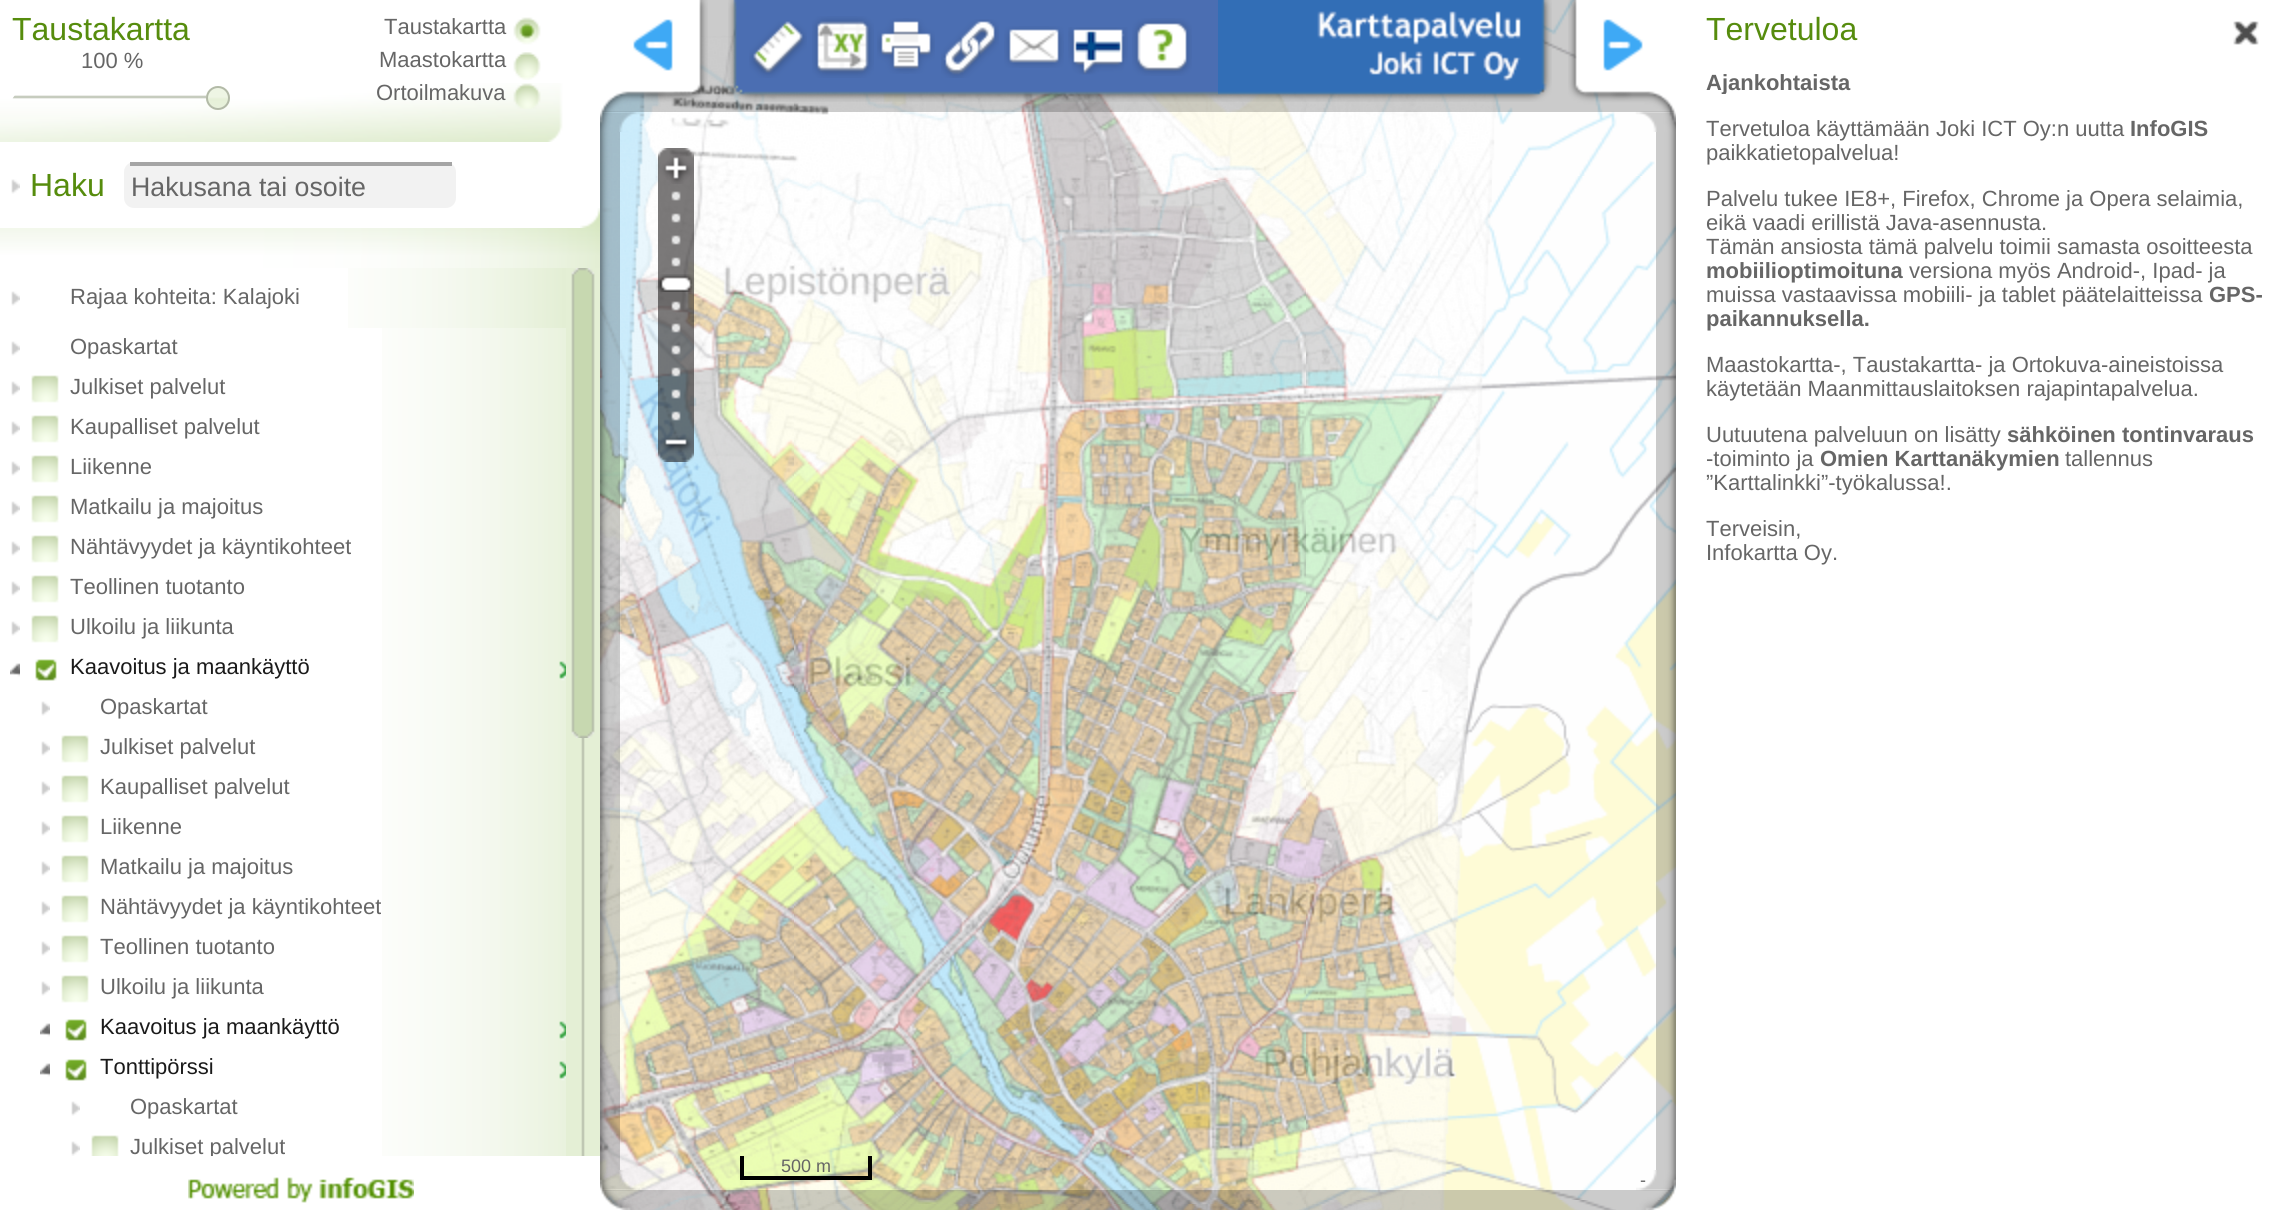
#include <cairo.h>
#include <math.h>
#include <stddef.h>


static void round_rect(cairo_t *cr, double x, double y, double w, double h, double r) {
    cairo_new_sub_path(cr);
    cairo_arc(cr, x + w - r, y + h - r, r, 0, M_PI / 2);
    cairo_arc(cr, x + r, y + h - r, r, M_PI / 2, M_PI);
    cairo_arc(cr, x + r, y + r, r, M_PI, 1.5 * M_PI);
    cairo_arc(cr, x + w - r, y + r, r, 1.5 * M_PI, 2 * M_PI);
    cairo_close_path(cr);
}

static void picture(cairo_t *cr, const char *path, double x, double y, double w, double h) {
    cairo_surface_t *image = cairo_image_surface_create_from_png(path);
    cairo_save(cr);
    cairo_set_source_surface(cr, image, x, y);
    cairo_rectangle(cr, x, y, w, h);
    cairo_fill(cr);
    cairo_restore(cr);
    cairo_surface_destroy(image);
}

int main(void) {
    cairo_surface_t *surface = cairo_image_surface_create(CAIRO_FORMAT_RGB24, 2276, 1210);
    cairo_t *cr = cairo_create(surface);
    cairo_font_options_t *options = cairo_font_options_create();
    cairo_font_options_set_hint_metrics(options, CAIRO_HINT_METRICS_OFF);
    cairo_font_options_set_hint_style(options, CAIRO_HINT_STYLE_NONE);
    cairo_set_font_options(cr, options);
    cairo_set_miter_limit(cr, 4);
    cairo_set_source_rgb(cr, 1, 1, 1);
    cairo_paint(cr);
    picture(cr, "img39.png", 600, 0, 326, 176);
    picture(cr, "img40.png", 926, 91, 512, 85);
    picture(cr, "img41.png", 1438, 0, 238, 176);
    picture(cr, "img42.png", 600, 176, 326, 512);
    picture(cr, "img51.png", 600, 35, 194, 145);
    picture(cr, "img43.png", 926, 176, 512, 512);
    picture(cr, "img52.png", 794, 91, 512, 89);
    picture(cr, "img44.png", 1438, 176, 238, 512);
    picture(cr, "img53.png", 1306, 91, 191, 89);
    picture(cr, "img45.png", 600, 688, 326, 512);
    picture(cr, "img54.png", 600, 180, 194, 512);
    picture(cr, "img63.png", 600, 91, 45, 511);
    cairo_set_source_rgba(cr, 0, 0, 0, 0.2);
    cairo_rectangle(cr, 600, 0, 1076, 112);
    cairo_fill(cr);
    picture(cr, "img1.png", 0, 83, 563, 59);
    cairo_select_font_face(cr, "Liberation Sans", CAIRO_FONT_SLANT_NORMAL, CAIRO_FONT_WEIGHT_NORMAL);
    cairo_set_font_size(cr, 32);
    cairo_set_source_rgb(cr, 0.337, 0.549, 0.051);
    cairo_move_to(cr, 12, 40);
    cairo_show_text(cr, "Taustakartta");
    cairo_set_font_size(cr, 22);
    cairo_set_source_rgb(cr, 0.4, 0.4, 0.4);
    cairo_move_to(cr, 81, 68);
    cairo_show_text(cr, "100 %");
    picture(cr, "img2.png", 12, 95, 195, 4);
    picture(cr, "img3.png", 206, 86, 24, 24);
    cairo_arc(cr, 218, 98, 11, 0, 2 * M_PI);
    cairo_set_source_rgb(cr, 0.702, 0.729, 0.659);
    cairo_stroke(cr);
    cairo_set_source_rgb(cr, 0.4, 0.4, 0.4);
    cairo_move_to(cr, 384, 34);
    cairo_show_text(cr, "Taustakartta");
    picture(cr, "img4.png", 513, 17, 28, 28);
    cairo_move_to(cr, 379, 67);
    cairo_show_text(cr, "Maastokartta");
    picture(cr, "img5.png", 513, 52, 28, 28);
    cairo_move_to(cr, 376, 100);
    cairo_show_text(cr, "Ortoilmakuva");
    picture(cr, "img6.png", 513, 83, 28, 26);
    picture(cr, "img7.png", 11, 179, 9, 15);
    cairo_set_font_size(cr, 32);
    cairo_set_source_rgb(cr, 0.337, 0.549, 0.051);
    cairo_move_to(cr, 30, 196);
    cairo_show_text(cr, "Haku");
    cairo_set_source_rgb(cr, 0.949, 0.949, 0.949);
    round_rect(cr, 124, 162, 332, 46, 10);
    cairo_fill(cr);
    cairo_set_source_rgb(cr, 0.647, 0.647, 0.647);
    cairo_rectangle(cr, 130, 162, 322, 4);
    cairo_fill(cr);
    cairo_set_font_size(cr, 26.75);
    cairo_set_source_rgb(cr, 0.4, 0.4, 0.4);
    cairo_move_to(cr, 131, 196);
    cairo_show_text(cr, "Hakusana tai osoite");
    picture(cr, "img8.png", 0, 228, 600, 40);
    picture(cr, "img9.png", 580, 208, 20, 20);
    picture(cr, "img10.png", 348, 268, 218, 60);
    picture(cr, "img7.png", 11, 291, 9, 15);
    cairo_set_font_size(cr, 22);
    cairo_move_to(cr, 70, 304);
    cairo_show_text(cr, "Rajaa kohteita: Kalajoki");
    picture(cr, "img11.png", 382, 328, 184, 828);
    picture(cr, "img7.png", 11, 341, 9, 15);
    cairo_move_to(cr, 70, 354);
    cairo_show_text(cr, "Opaskartat");
    picture(cr, "img7.png", 11, 381, 9, 15);
    picture(cr, "img12.png", 31, 375, 28, 28);
    cairo_move_to(cr, 70, 394);
    cairo_show_text(cr, "Julkiset palvelut");
    picture(cr, "img7.png", 11, 421, 9, 15);
    picture(cr, "img12.png", 31, 415, 28, 28);
    cairo_move_to(cr, 70, 434);
    cairo_show_text(cr, "Kaupalliset palvelut");
    picture(cr, "img7.png", 11, 461, 9, 15);
    picture(cr, "img12.png", 31, 455, 28, 28);
    cairo_move_to(cr, 70, 474);
    cairo_show_text(cr, "Liikenne");
    picture(cr, "img7.png", 11, 501, 9, 15);
    picture(cr, "img12.png", 31, 495, 28, 28);
    cairo_move_to(cr, 70, 514);
    cairo_show_text(cr, "Matkailu ja majoitus");
    picture(cr, "img7.png", 11, 541, 9, 15);
    picture(cr, "img12.png", 31, 535, 28, 28);
    cairo_move_to(cr, 70, 554);
    cairo_show_text(cr, "Nähtävyydet ja käyntikohteet");
    picture(cr, "img7.png", 11, 581, 9, 15);
    picture(cr, "img12.png", 31, 575, 28, 28);
    cairo_move_to(cr, 70, 594);
    cairo_show_text(cr, "Teollinen tuotanto");
    picture(cr, "img7.png", 11, 621, 9, 15);
    picture(cr, "img12.png", 31, 615, 28, 28);
    cairo_move_to(cr, 70, 634);
    cairo_show_text(cr, "Ulkoilu ja liikunta");
    picture(cr, "img13.png", 10, 663, 10, 14);
    picture(cr, "img14.png", 35, 659, 22, 22);
    cairo_set_source_rgb(cr, 0.102, 0.102, 0.102);
    cairo_move_to(cr, 70, 674);
    cairo_show_text(cr, "Kaavoitus ja maankäyttö");
    picture(cr, "img15.png", 559, 661, 7, 20);
    picture(cr, "img7.png", 41, 701, 9, 15);
    cairo_set_source_rgb(cr, 0.4, 0.4, 0.4);
    cairo_move_to(cr, 100, 714);
    cairo_show_text(cr, "Opaskartat");
    picture(cr, "img7.png", 41, 741, 9, 15);
    picture(cr, "img12.png", 61, 735, 28, 28);
    cairo_move_to(cr, 100, 754);
    cairo_show_text(cr, "Julkiset palvelut");
    picture(cr, "img7.png", 41, 781, 9, 15);
    picture(cr, "img12.png", 61, 775, 28, 28);
    cairo_move_to(cr, 100, 794);
    cairo_show_text(cr, "Kaupalliset palvelut");
    picture(cr, "img7.png", 41, 821, 9, 15);
    picture(cr, "img12.png", 61, 815, 28, 28);
    cairo_move_to(cr, 100, 834);
    cairo_show_text(cr, "Liikenne");
    picture(cr, "img7.png", 41, 861, 9, 15);
    picture(cr, "img12.png", 61, 855, 28, 28);
    cairo_move_to(cr, 100, 874);
    cairo_show_text(cr, "Matkailu ja majoitus");
    picture(cr, "img7.png", 41, 901, 9, 15);
    picture(cr, "img12.png", 61, 895, 28, 28);
    cairo_move_to(cr, 100, 914);
    cairo_show_text(cr, "Nähtävyydet ja käyntikohteet");
    picture(cr, "img7.png", 41, 941, 9, 15);
    picture(cr, "img12.png", 61, 935, 28, 28);
    cairo_move_to(cr, 100, 954);
    cairo_show_text(cr, "Teollinen tuotanto");
    picture(cr, "img7.png", 41, 981, 9, 15);
    picture(cr, "img12.png", 61, 975, 28, 28);
    cairo_move_to(cr, 100, 994);
    cairo_show_text(cr, "Ulkoilu ja liikunta");
    picture(cr, "img13.png", 40, 1023, 10, 14);
    picture(cr, "img14.png", 65, 1019, 22, 22);
    cairo_set_source_rgb(cr, 0.102, 0.102, 0.102);
    cairo_move_to(cr, 100, 1034);
    cairo_show_text(cr, "Kaavoitus ja maankäyttö");
    picture(cr, "img15.png", 559, 1021, 7, 20);
    picture(cr, "img13.png", 40, 1063, 10, 14);
    picture(cr, "img14.png", 65, 1059, 22, 22);
    cairo_move_to(cr, 100, 1074);
    cairo_show_text(cr, "Tonttipörssi");
    picture(cr, "img15.png", 559, 1061, 7, 20);
    picture(cr, "img7.png", 71, 1101, 9, 15);
    cairo_set_source_rgb(cr, 0.4, 0.4, 0.4);
    cairo_move_to(cr, 130, 1114);
    cairo_show_text(cr, "Opaskartat");
    picture(cr, "img16.png", 71, 1141, 9, 15);
    picture(cr, "img17.png", 91, 1135, 28, 21);
    cairo_save(cr);
    cairo_rectangle(cr, 60, 1128, 540, 28);
    cairo_clip(cr);
    cairo_move_to(cr, 130, 1154);
    cairo_show_text(cr, "Julkiset palvelut");
    cairo_restore(cr);
    picture(cr, "img18.png", 566, 268, 34, 888);
    picture(cr, "img19.png", 571, 275, 24, 456);
    picture(cr, "img20.png", 571, 268, 24, 7);
    picture(cr, "img21.png", 571, 731, 24, 7);
    picture(cr, "img22.png", 188, 1177, 226, 26);
    picture(cr, "img23.png", 600, 0, 108, 132);
    picture(cr, "img48.png", 605, 1200, 321, 10);
    picture(cr, "img57.png", 600, 692, 194, 512);
    picture(cr, "img64.png", 600, 602, 21, 354);
    picture(cr, "img24.png", 600, 132, 20, 1038);
    picture(cr, "img60.png", 609, 1204, 185, 6);
    picture(cr, "img46.png", 926, 688, 512, 512);
    picture(cr, "img47.png", 1438, 688, 238, 512);
    picture(cr, "img49.png", 926, 1200, 512, 10);
    picture(cr, "img50.png", 1438, 1200, 233, 10);
    picture(cr, "img58.png", 794, 692, 512, 512);
    picture(cr, "img59.png", 1306, 692, 162, 512);
    picture(cr, "img61.png", 794, 1204, 512, 6);
    picture(cr, "img62.png", 1306, 1204, 139, 6);
    cairo_set_source_rgba(cr, 0, 0, 0, 0.2);
    cairo_rectangle(cr, 600, 1190, 1076, 20);
    cairo_fill(cr);
    picture(cr, "img25.png", 600, 1170, 40, 40);
    picture(cr, "img26.png", 728, 0, 490, 102);
    picture(cr, "img27.png", 749, 20, 58, 58);
    picture(cr, "img28.png", 812, 16, 62, 62);
    picture(cr, "img29.png", 877, 18, 58, 56);
    picture(cr, "img30.png", 941, 19, 58, 59);
    picture(cr, "img31.png", 1004, 26, 60, 42);
    picture(cr, "img32.png", 1068, 27, 60, 48);
    picture(cr, "img33.png", 1132, 18, 60, 58);
    picture(cr, "img34.png", 1218, 0, 334, 102);
    picture(cr, "img35.png", 1568, 0, 108, 132);
    cairo_set_font_size(cr, 32);
    cairo_set_source_rgb(cr, 0.337, 0.549, 0.051);
    cairo_move_to(cr, 1706, 40);
    cairo_show_text(cr, "Tervetuloa");
    picture(cr, "img36.png", 2233, 21, 26, 24);
    cairo_save(cr);
    cairo_rectangle(cr, 1706, 70, 560, 24);
    cairo_clip(cr);
    cairo_select_font_face(cr, "Liberation Sans", CAIRO_FONT_SLANT_NORMAL, CAIRO_FONT_WEIGHT_BOLD);
    cairo_set_font_size(cr, 22);
    cairo_set_source_rgb(cr, 0.4, 0.4, 0.4);
    cairo_move_to(cr, 1706, 90);
    cairo_show_text(cr, "Ajankohtaista");
    cairo_restore(cr);
    cairo_set_font_size(cr, 22);
    cairo_set_source_rgb(cr, 0.4, 0.4, 0.4);
    cairo_move_to(cr, 1706, 136);
    cairo_show_text(cr, "Tervetuloa käyttämään Joki ICT Oy:n uutta");
    cairo_select_font_face(cr, "Liberation Sans", CAIRO_FONT_SLANT_NORMAL, CAIRO_FONT_WEIGHT_BOLD);
    cairo_move_to(cr, 2130, 136);
    cairo_show_text(cr, "InfoGIS");
    cairo_select_font_face(cr, "Liberation Sans", CAIRO_FONT_SLANT_NORMAL, CAIRO_FONT_WEIGHT_NORMAL);
    cairo_move_to(cr, 1706, 160);
    cairo_show_text(cr, "paikkatietopalvelua!");
    cairo_move_to(cr, 1706, 206);
    cairo_show_text(cr, "Palvelu tukee IE8+, Firefox, Chrome ja Opera selaimia,");
    cairo_move_to(cr, 1706, 230);
    cairo_show_text(cr, "eikä vaadi erillistä Java-asennusta.");
    cairo_move_to(cr, 1706, 254);
    cairo_show_text(cr, "Tämän ansiosta tämä palvelu toimii samasta osoitteesta");
    cairo_select_font_face(cr, "Liberation Sans", CAIRO_FONT_SLANT_NORMAL, CAIRO_FONT_WEIGHT_BOLD);
    cairo_move_to(cr, 1706, 278);
    cairo_show_text(cr, "mobiilioptimoituna");
    cairo_select_font_face(cr, "Liberation Sans", CAIRO_FONT_SLANT_NORMAL, CAIRO_FONT_WEIGHT_NORMAL);
    cairo_move_to(cr, 1909, 278);
    cairo_show_text(cr, "versiona myös Android-, Ipad- ja");
    cairo_move_to(cr, 1706, 302);
    cairo_show_text(cr, "muissa vastaavissa mobiili- ja tablet päätelaitteissa");
    cairo_select_font_face(cr, "Liberation Sans", CAIRO_FONT_SLANT_NORMAL, CAIRO_FONT_WEIGHT_BOLD);
    cairo_move_to(cr, 2209, 302);
    cairo_show_text(cr, "GPS-");
    cairo_move_to(cr, 1706, 326);
    cairo_show_text(cr, "paikannuksella.");
    cairo_select_font_face(cr, "Liberation Sans", CAIRO_FONT_SLANT_NORMAL, CAIRO_FONT_WEIGHT_NORMAL);
    cairo_move_to(cr, 1706, 372);
    cairo_show_text(cr, "Maastokartta-, Taustakartta- ja Ortokuva-aineistoissa");
    cairo_move_to(cr, 1706, 396);
    cairo_show_text(cr, "käytetään Maanmittauslaitoksen rajapintapalvelua.");
    cairo_move_to(cr, 1706, 442);
    cairo_show_text(cr, "Uutuutena palveluun on lisätty");
    cairo_select_font_face(cr, "Liberation Sans", CAIRO_FONT_SLANT_NORMAL, CAIRO_FONT_WEIGHT_BOLD);
    cairo_move_to(cr, 2007, 442);
    cairo_show_text(cr, "sähköinen tontinvaraus");
    cairo_select_font_face(cr, "Liberation Sans", CAIRO_FONT_SLANT_NORMAL, CAIRO_FONT_WEIGHT_NORMAL);
    cairo_move_to(cr, 1706, 466);
    cairo_show_text(cr, "-toiminto ja");
    cairo_select_font_face(cr, "Liberation Sans", CAIRO_FONT_SLANT_NORMAL, CAIRO_FONT_WEIGHT_BOLD);
    cairo_move_to(cr, 1820, 466);
    cairo_show_text(cr, "Omien Karttanäkymien");
    cairo_select_font_face(cr, "Liberation Sans", CAIRO_FONT_SLANT_NORMAL, CAIRO_FONT_WEIGHT_NORMAL);
    cairo_move_to(cr, 2065, 466);
    cairo_show_text(cr, "tallennus");
    cairo_move_to(cr, 1706, 490);
    cairo_show_text(cr, "”Karttalinkki”-työkalussa!.");
    cairo_move_to(cr, 1706, 536);
    cairo_show_text(cr, "Terveisin,");
    cairo_move_to(cr, 1706, 560);
    cairo_show_text(cr, "Infokartta Oy.");
    picture(cr, "img37.png", 1656, 132, 20, 1038);
    cairo_set_font_size(cr, 18);
    cairo_move_to(cr, 1640, 1186);
    cairo_show_text(cr, "-");
    picture(cr, "img38.png", 1636, 1170, 40, 40);
    picture(cr, "img55.png", 794, 180, 512, 512);
    picture(cr, "img56.png", 1306, 180, 186, 512);
    picture(cr, "img65.png", 658, 148, 36, 36);
    picture(cr, "img66.png", 658, 184, 36, 242);
    picture(cr, "img67.png", 656, 274, 39, 18);
    picture(cr, "img68.png", 658, 426, 36, 36);
    cairo_set_source_rgb(cr, 0, 0, 0);
    cairo_rectangle(cr, 868, 1156, 4, 24);
    cairo_fill(cr);
    cairo_rectangle(cr, 740, 1176, 132, 4);
    cairo_fill(cr);
    cairo_rectangle(cr, 740, 1156, 4, 24);
    cairo_fill(cr);
    cairo_set_source_rgb(cr, 0.4, 0.4, 0.4);
    cairo_move_to(cr, 781, 1172);
    cairo_show_text(cr, "500 m");
    cairo_surface_write_to_png(surface, "page.png");
    cairo_font_options_destroy(options);
    cairo_destroy(cr);
    cairo_surface_destroy(surface);
    return 0;
}
